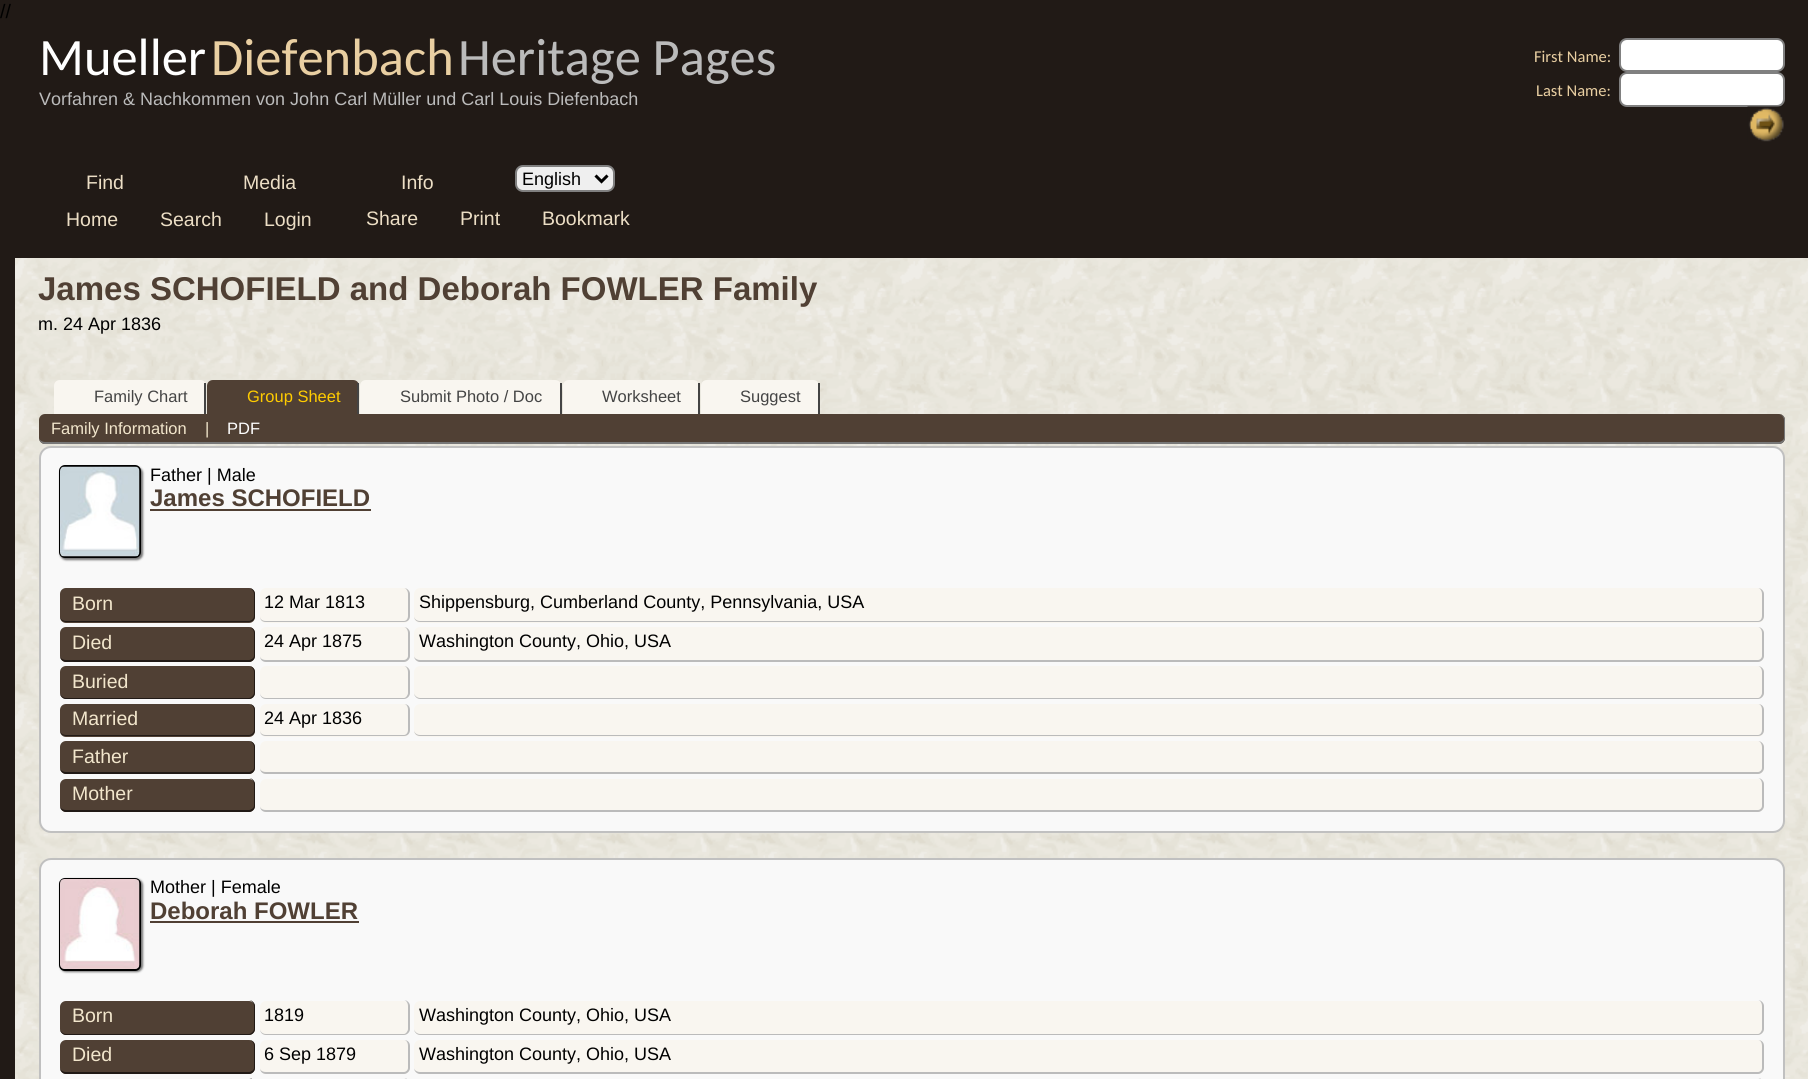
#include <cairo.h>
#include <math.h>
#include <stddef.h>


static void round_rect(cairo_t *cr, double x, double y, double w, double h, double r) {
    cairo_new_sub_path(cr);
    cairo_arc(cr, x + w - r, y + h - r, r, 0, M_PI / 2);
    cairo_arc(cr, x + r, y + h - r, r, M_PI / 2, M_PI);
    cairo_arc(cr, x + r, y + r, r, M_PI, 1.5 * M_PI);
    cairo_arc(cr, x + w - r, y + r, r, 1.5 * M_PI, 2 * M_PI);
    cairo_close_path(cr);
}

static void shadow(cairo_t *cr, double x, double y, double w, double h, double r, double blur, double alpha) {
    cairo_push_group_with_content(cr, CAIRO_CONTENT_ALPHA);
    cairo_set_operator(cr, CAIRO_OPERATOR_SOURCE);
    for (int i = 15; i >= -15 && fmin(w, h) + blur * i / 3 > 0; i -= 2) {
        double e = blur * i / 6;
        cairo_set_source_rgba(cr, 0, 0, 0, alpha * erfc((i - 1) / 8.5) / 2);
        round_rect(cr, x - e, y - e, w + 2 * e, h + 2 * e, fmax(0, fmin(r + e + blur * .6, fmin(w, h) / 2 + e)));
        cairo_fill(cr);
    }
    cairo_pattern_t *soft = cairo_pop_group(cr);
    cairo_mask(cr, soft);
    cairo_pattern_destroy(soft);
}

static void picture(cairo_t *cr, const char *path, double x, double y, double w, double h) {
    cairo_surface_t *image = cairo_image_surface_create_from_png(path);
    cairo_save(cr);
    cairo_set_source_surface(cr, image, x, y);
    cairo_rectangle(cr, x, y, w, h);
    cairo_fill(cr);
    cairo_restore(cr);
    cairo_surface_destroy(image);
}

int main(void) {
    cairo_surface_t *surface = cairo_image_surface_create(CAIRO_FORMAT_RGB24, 1808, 1079);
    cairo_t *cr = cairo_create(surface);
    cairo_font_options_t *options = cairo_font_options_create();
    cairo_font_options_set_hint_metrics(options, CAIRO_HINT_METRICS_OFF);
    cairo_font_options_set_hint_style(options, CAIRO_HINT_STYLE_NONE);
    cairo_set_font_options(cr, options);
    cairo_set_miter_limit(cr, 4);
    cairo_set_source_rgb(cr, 0.129, 0.102, 0.086);
    cairo_paint(cr);
    cairo_select_font_face(cr, "Liberation Sans", CAIRO_FONT_SLANT_NORMAL, CAIRO_FONT_WEIGHT_NORMAL);
    cairo_set_font_size(cr, 19.5);
    cairo_set_source_rgb(cr, 0, 0, 0);
    cairo_move_to(cr, 0, 18);
    cairo_show_text(cr, "//");
    cairo_select_font_face(cr, "Carlito", CAIRO_FONT_SLANT_NORMAL, CAIRO_FONT_WEIGHT_NORMAL);
    cairo_set_font_size(cr, 52.5);
    cairo_set_source_rgb(cr, 1, 1, 1);
    cairo_move_to(cr, 39, 75);
    cairo_show_text(cr, "Mueller");
    cairo_set_source_rgb(cr, 0.914, 0.812, 0.635);
    cairo_move_to(cr, 211, 75);
    cairo_show_text(cr, "Diefenbach");
    cairo_set_source_rgb(cr, 0.733, 0.733, 0.733);
    cairo_move_to(cr, 458, 75);
    cairo_show_text(cr, "Heritage Pages");
    cairo_select_font_face(cr, "Liberation Sans", CAIRO_FONT_SLANT_NORMAL, CAIRO_FONT_WEIGHT_NORMAL);
    cairo_set_font_size(cr, 18);
    cairo_move_to(cr, 39, 105);
    cairo_show_text(cr, "Vorfahren & Nachkommen von John Carl Müller und Carl Louis Diefenbach");
    cairo_select_font_face(cr, "Carlito", CAIRO_FONT_SLANT_NORMAL, CAIRO_FONT_WEIGHT_NORMAL);
    cairo_set_font_size(cr, 16.5);
    cairo_set_source_rgb(cr, 0.914, 0.812, 0.635);
    cairo_move_to(cr, 1534, 62);
    cairo_show_text(cr, "First Name:");
    cairo_set_source_rgb(cr, 1, 1, 1);
    round_rect(cr, 1620, 39, 164, 32, 7);
    cairo_fill_preserve(cr);
    cairo_set_source_rgb(cr, 0.502, 0.502, 0.502);
    cairo_stroke(cr);
    cairo_set_source_rgb(cr, 0.914, 0.812, 0.635);
    cairo_move_to(cr, 1536, 96);
    cairo_show_text(cr, "Last Name:");
    cairo_set_source_rgb(cr, 1, 1, 1);
    round_rect(cr, 1620, 73, 164, 33, 7);
    cairo_fill_preserve(cr);
    cairo_set_source_rgb(cr, 0.502, 0.502, 0.502);
    cairo_stroke(cr);
    picture(cr, "img1.png", 1747, 106, 37, 36);
    cairo_select_font_face(cr, "Liberation Sans", CAIRO_FONT_SLANT_NORMAL, CAIRO_FONT_WEIGHT_NORMAL);
    cairo_set_font_size(cr, 19.5);
    cairo_set_source_rgb(cr, 0.922, 0.871, 0.773);
    cairo_move_to(cr, 86, 189);
    cairo_show_text(cr, "Find");
    cairo_move_to(cr, 243, 189);
    cairo_show_text(cr, "Media");
    cairo_move_to(cr, 401, 189);
    cairo_show_text(cr, "Info");
    cairo_set_source_rgb(cr, 0.937, 0.937, 0.937);
    round_rect(cr, 516, 166, 98, 25, 7);
    cairo_fill_preserve(cr);
    cairo_set_source_rgb(cr, 0.502, 0.502, 0.502);
    cairo_stroke(cr);
    cairo_new_path(cr);
    cairo_move_to(cr, 595.5, 175.5);
    cairo_line_to(cr, 601.5, 181.5);
    cairo_line_to(cr, 607.5, 175.5);
    cairo_set_source_rgb(cr, 0, 0, 0);
    cairo_set_line_width(cr, 3);
    cairo_stroke(cr);
    cairo_set_font_size(cr, 18);
    cairo_move_to(cr, 522, 185);
    cairo_show_text(cr, "English");
    cairo_set_font_size(cr, 19.5);
    cairo_set_source_rgb(cr, 0.922, 0.871, 0.773);
    cairo_move_to(cr, 66, 226);
    cairo_show_text(cr, "Home");
    cairo_move_to(cr, 160, 226);
    cairo_show_text(cr, "Search");
    cairo_move_to(cr, 264, 226);
    cairo_show_text(cr, "Login");
    cairo_move_to(cr, 366, 225);
    cairo_show_text(cr, "Share");
    cairo_move_to(cr, 460, 225);
    cairo_show_text(cr, "Print");
    cairo_move_to(cr, 542, 225);
    cairo_show_text(cr, "Bookmark");
    picture(cr, "img2.png", 15, 258, 1793, 821);
    cairo_select_font_face(cr, "Liberation Sans", CAIRO_FONT_SLANT_NORMAL, CAIRO_FONT_WEIGHT_BOLD);
    cairo_set_font_size(cr, 33);
    cairo_set_source_rgb(cr, 0.314, 0.251, 0.204);
    cairo_move_to(cr, 38, 300);
    cairo_show_text(cr, "James SCHOFIELD and Deborah FOWLER Family");
    cairo_select_font_face(cr, "Liberation Sans", CAIRO_FONT_SLANT_NORMAL, CAIRO_FONT_WEIGHT_NORMAL);
    cairo_set_font_size(cr, 18);
    cairo_set_source_rgb(cr, 0, 0, 0);
    cairo_move_to(cr, 38, 330);
    cairo_show_text(cr, "m. 24 Apr 1836");
    cairo_set_source_rgb(cr, 0.976, 0.961, 0.941);
    cairo_new_path(cr);
    cairo_move_to(cr, 60, 380);
    cairo_line_to(cr, 200, 380);
    cairo_curve_to(cr, 203.5, 380, 206, 382.5, 206, 386);
    cairo_line_to(cr, 206, 414);
    cairo_line_to(cr, 54, 414);
    cairo_line_to(cr, 54, 386);
    cairo_curve_to(cr, 54, 382.5, 56.5, 380, 60, 380);
    cairo_close_path(cr);
    cairo_fill(cr);
    cairo_set_source_rgb(cr, 0.267, 0.267, 0.267);
    cairo_rectangle(cr, 204, 383, 2, 31);
    cairo_fill(cr);
    cairo_set_font_size(cr, 16.5);
    cairo_move_to(cr, 94, 402);
    cairo_show_text(cr, "Family Chart");
    cairo_set_source_rgb(cr, 0.314, 0.251, 0.204);
    cairo_new_path(cr);
    cairo_move_to(cr, 213, 380);
    cairo_line_to(cr, 353, 380);
    cairo_curve_to(cr, 356.5, 380, 359, 382.5, 359, 386);
    cairo_line_to(cr, 359, 414);
    cairo_line_to(cr, 207, 414);
    cairo_line_to(cr, 207, 386);
    cairo_curve_to(cr, 207, 382.5, 209.5, 380, 213, 380);
    cairo_close_path(cr);
    cairo_fill(cr);
    cairo_set_source_rgb(cr, 0.267, 0.267, 0.267);
    cairo_rectangle(cr, 357, 383, 2, 31);
    cairo_fill(cr);
    cairo_set_source_rgb(cr, 1, 0.8, 0);
    cairo_move_to(cr, 247, 402);
    cairo_show_text(cr, "Group Sheet");
    cairo_set_source_rgb(cr, 0.976, 0.961, 0.941);
    cairo_new_path(cr);
    cairo_move_to(cr, 366, 380);
    cairo_line_to(cr, 555, 380);
    cairo_curve_to(cr, 558.5, 380, 561, 382.5, 561, 386);
    cairo_line_to(cr, 561, 414);
    cairo_line_to(cr, 360, 414);
    cairo_line_to(cr, 360, 386);
    cairo_curve_to(cr, 360, 382.5, 362.5, 380, 366, 380);
    cairo_close_path(cr);
    cairo_fill(cr);
    cairo_set_source_rgb(cr, 0.267, 0.267, 0.267);
    cairo_rectangle(cr, 560, 383, 2, 31);
    cairo_fill(cr);
    cairo_move_to(cr, 400, 402);
    cairo_show_text(cr, "Submit Photo / Doc");
    cairo_set_source_rgb(cr, 0.976, 0.961, 0.941);
    cairo_new_path(cr);
    cairo_move_to(cr, 569, 380);
    cairo_line_to(cr, 693, 380);
    cairo_curve_to(cr, 696.5, 380, 699, 382.5, 699, 386);
    cairo_line_to(cr, 699, 414);
    cairo_line_to(cr, 563, 414);
    cairo_line_to(cr, 563, 386);
    cairo_curve_to(cr, 563, 382.5, 565.5, 380, 569, 380);
    cairo_close_path(cr);
    cairo_fill(cr);
    cairo_set_source_rgb(cr, 0.267, 0.267, 0.267);
    cairo_rectangle(cr, 698, 383, 2, 31);
    cairo_fill(cr);
    cairo_move_to(cr, 602, 402);
    cairo_show_text(cr, "Worksheet");
    cairo_set_source_rgb(cr, 0.976, 0.961, 0.941);
    cairo_new_path(cr);
    cairo_move_to(cr, 707, 380);
    cairo_line_to(cr, 813, 380);
    cairo_curve_to(cr, 816.5, 380, 819, 382.5, 819, 386);
    cairo_line_to(cr, 819, 414);
    cairo_line_to(cr, 701, 414);
    cairo_line_to(cr, 701, 386);
    cairo_curve_to(cr, 701, 382.5, 703.5, 380, 707, 380);
    cairo_close_path(cr);
    cairo_fill(cr);
    cairo_set_source_rgb(cr, 0.267, 0.267, 0.267);
    cairo_rectangle(cr, 818, 383, 2, 31);
    cairo_fill(cr);
    cairo_move_to(cr, 740, 402);
    cairo_show_text(cr, "Suggest");
    cairo_set_source_rgb(cr, 0.314, 0.251, 0.204);
    round_rect(cr, 39, 414, 1746, 30, 6);
    cairo_fill(cr);
    cairo_set_source_rgb(cr, 0.467, 0.467, 0.467);
    cairo_set_fill_rule(cr, CAIRO_FILL_RULE_EVEN_ODD);
    cairo_new_path(cr);
    cairo_move_to(cr, 45, 414);
    cairo_line_to(cr, 1779, 414);
    cairo_curve_to(cr, 1782, 414, 1785, 417, 1785, 420);
    cairo_line_to(cr, 1785, 438);
    cairo_curve_to(cr, 1785, 441, 1782, 444, 1779, 444);
    cairo_line_to(cr, 45, 444);
    cairo_curve_to(cr, 42, 444, 39, 441, 39, 438);
    cairo_line_to(cr, 39, 420);
    cairo_curve_to(cr, 39, 417, 42, 414, 45, 414);
    cairo_close_path(cr);
    cairo_move_to(cr, 45, 414);
    cairo_line_to(cr, 1779, 414);
    cairo_curve_to(cr, 1781, 414, 1784, 417, 1784, 420);
    cairo_line_to(cr, 1784, 438);
    cairo_curve_to(cr, 1784, 440, 1781, 442, 1779, 442);
    cairo_line_to(cr, 45, 442);
    cairo_curve_to(cr, 42, 442, 39, 440, 39, 438);
    cairo_line_to(cr, 39, 420);
    cairo_curve_to(cr, 39, 417, 42, 414, 45, 414);
    cairo_close_path(cr);
    cairo_fill(cr);
    cairo_set_source_rgb(cr, 0.949, 0.902, 0.8);
    cairo_move_to(cr, 51, 434);
    cairo_show_text(cr, "Family Information");
    cairo_move_to(cr, 205, 434);
    cairo_show_text(cr, "|");
    cairo_set_source_rgb(cr, 1, 1, 1);
    cairo_move_to(cr, 227, 434);
    cairo_show_text(cr, "PDF");
    cairo_set_source_rgb(cr, 0.976, 0.976, 0.976);
    round_rect(cr, 40, 447, 1744, 385, 11);
    cairo_fill_preserve(cr);
    cairo_set_source_rgb(cr, 0.753, 0.753, 0.753);
    cairo_set_line_width(cr, 2);
    cairo_stroke(cr);
    cairo_set_source_rgb(cr, 0.467, 0.467, 0.467);
    shadow(cr, 60, 467, 83, 93, 6, 1, 1);
    round_rect(cr, 60, 466, 80, 91, 5);
    cairo_set_source_rgb(cr, 0, 0, 0);
    cairo_stroke(cr);
    picture(cr, "img3.png", 60, 466, 80, 91);
    cairo_set_font_size(cr, 18);
    cairo_move_to(cr, 150, 481);
    cairo_show_text(cr, "Father | Male");
    cairo_select_font_face(cr, "Liberation Sans", CAIRO_FONT_SLANT_NORMAL, CAIRO_FONT_WEIGHT_BOLD);
    cairo_set_font_size(cr, 24);
    cairo_set_source_rgb(cr, 0.314, 0.251, 0.204);
    cairo_move_to(cr, 150, 506);
    cairo_show_text(cr, "James SCHOFIELD");
    cairo_rectangle(cr, 150, 509, 221, 2);
    cairo_fill(cr);
    round_rect(cr, 60, 588, 195, 35, 6);
    cairo_fill(cr);
    cairo_set_source_rgb(cr, 0.129, 0.102, 0.086);
    cairo_new_path(cr);
    cairo_move_to(cr, 66, 588);
    cairo_line_to(cr, 249, 588);
    cairo_curve_to(cr, 252, 588, 255, 591, 255, 594);
    cairo_line_to(cr, 255, 616);
    cairo_curve_to(cr, 255, 620, 252, 622, 249, 622);
    cairo_line_to(cr, 66, 622);
    cairo_curve_to(cr, 63, 622, 60, 620, 60, 616);
    cairo_line_to(cr, 60, 594);
    cairo_curve_to(cr, 60, 591, 63, 588, 66, 588);
    cairo_close_path(cr);
    cairo_move_to(cr, 66, 588);
    cairo_line_to(cr, 249, 588);
    cairo_curve_to(cr, 251, 588, 254, 591, 254, 594);
    cairo_line_to(cr, 254, 616);
    cairo_curve_to(cr, 254, 619, 251, 621, 249, 621);
    cairo_line_to(cr, 66, 621);
    cairo_curve_to(cr, 63, 621, 60, 619, 60, 616);
    cairo_line_to(cr, 60, 594);
    cairo_curve_to(cr, 60, 591, 63, 588, 66, 588);
    cairo_close_path(cr);
    cairo_fill(cr);
    cairo_select_font_face(cr, "Liberation Sans", CAIRO_FONT_SLANT_NORMAL, CAIRO_FONT_WEIGHT_NORMAL);
    cairo_set_font_size(cr, 19.5);
    cairo_set_source_rgb(cr, 0.949, 0.902, 0.8);
    cairo_move_to(cr, 72, 610);
    cairo_show_text(cr, "Born");
    cairo_set_source_rgb(cr, 0.976, 0.961, 0.941);
    round_rect(cr, 260, 588, 150, 35, 6);
    cairo_fill(cr);
    cairo_set_source_rgb(cr, 0.733, 0.733, 0.733);
    cairo_new_path(cr);
    cairo_move_to(cr, 266, 588);
    cairo_line_to(cr, 404, 588);
    cairo_curve_to(cr, 407, 588, 410, 591, 410, 594);
    cairo_line_to(cr, 410, 616);
    cairo_curve_to(cr, 410, 620, 407, 622, 404, 622);
    cairo_line_to(cr, 266, 622);
    cairo_curve_to(cr, 262, 622, 260, 620, 260, 616);
    cairo_line_to(cr, 260, 594);
    cairo_curve_to(cr, 260, 591, 262, 588, 266, 588);
    cairo_close_path(cr);
    cairo_move_to(cr, 266, 588);
    cairo_line_to(cr, 404, 588);
    cairo_curve_to(cr, 406, 588, 408, 591, 408, 594);
    cairo_line_to(cr, 408, 616);
    cairo_curve_to(cr, 408, 619, 406, 621, 404, 621);
    cairo_line_to(cr, 266, 621);
    cairo_curve_to(cr, 262, 621, 260, 619, 260, 616);
    cairo_line_to(cr, 260, 594);
    cairo_curve_to(cr, 260, 591, 262, 588, 266, 588);
    cairo_close_path(cr);
    cairo_fill(cr);
    cairo_set_font_size(cr, 18);
    cairo_set_source_rgb(cr, 0, 0, 0);
    cairo_move_to(cr, 264, 608);
    cairo_show_text(cr, "12 Mar 1813");
    cairo_set_source_rgb(cr, 0.976, 0.961, 0.941);
    round_rect(cr, 414, 588, 1350, 35, 6);
    cairo_fill(cr);
    cairo_set_source_rgb(cr, 0.733, 0.733, 0.733);
    cairo_new_path(cr);
    cairo_move_to(cr, 420, 588);
    cairo_line_to(cr, 1758, 588);
    cairo_curve_to(cr, 1761, 588, 1764, 591, 1764, 594);
    cairo_line_to(cr, 1764, 616);
    cairo_curve_to(cr, 1764, 620, 1761, 622, 1758, 622);
    cairo_line_to(cr, 420, 622);
    cairo_curve_to(cr, 417, 622, 414, 620, 414, 616);
    cairo_line_to(cr, 414, 594);
    cairo_curve_to(cr, 414, 591, 417, 588, 420, 588);
    cairo_close_path(cr);
    cairo_move_to(cr, 420, 588);
    cairo_line_to(cr, 1758, 588);
    cairo_curve_to(cr, 1760, 588, 1762, 591, 1762, 594);
    cairo_line_to(cr, 1762, 616);
    cairo_curve_to(cr, 1762, 619, 1760, 621, 1758, 621);
    cairo_line_to(cr, 420, 621);
    cairo_curve_to(cr, 417, 621, 414, 619, 414, 616);
    cairo_line_to(cr, 414, 594);
    cairo_curve_to(cr, 414, 591, 417, 588, 420, 588);
    cairo_close_path(cr);
    cairo_fill(cr);
    cairo_set_source_rgb(cr, 0, 0, 0);
    cairo_move_to(cr, 419, 608);
    cairo_show_text(cr, "Shippensburg, Cumberland County, Pennsylvania, USA");
    cairo_set_source_rgb(cr, 0.314, 0.251, 0.204);
    round_rect(cr, 60, 627, 195, 35, 6);
    cairo_fill(cr);
    cairo_set_source_rgb(cr, 0.129, 0.102, 0.086);
    cairo_new_path(cr);
    cairo_move_to(cr, 66, 627);
    cairo_line_to(cr, 249, 627);
    cairo_curve_to(cr, 252, 627, 255, 630, 255, 633);
    cairo_line_to(cr, 255, 656);
    cairo_curve_to(cr, 255, 659, 252, 662, 249, 662);
    cairo_line_to(cr, 66, 662);
    cairo_curve_to(cr, 63, 662, 60, 659, 60, 656);
    cairo_line_to(cr, 60, 633);
    cairo_curve_to(cr, 60, 630, 63, 627, 66, 627);
    cairo_close_path(cr);
    cairo_move_to(cr, 66, 627);
    cairo_line_to(cr, 249, 627);
    cairo_curve_to(cr, 251, 627, 254, 630, 254, 633);
    cairo_line_to(cr, 254, 656);
    cairo_curve_to(cr, 254, 658, 251, 660, 249, 660);
    cairo_line_to(cr, 66, 660);
    cairo_curve_to(cr, 63, 660, 60, 658, 60, 656);
    cairo_line_to(cr, 60, 633);
    cairo_curve_to(cr, 60, 630, 63, 627, 66, 627);
    cairo_close_path(cr);
    cairo_fill(cr);
    cairo_set_font_size(cr, 19.5);
    cairo_set_source_rgb(cr, 0.949, 0.902, 0.8);
    cairo_move_to(cr, 72, 649);
    cairo_show_text(cr, "Died");
    cairo_set_source_rgb(cr, 0.976, 0.961, 0.941);
    round_rect(cr, 260, 627, 150, 35, 6);
    cairo_fill(cr);
    cairo_set_source_rgb(cr, 0.733, 0.733, 0.733);
    cairo_new_path(cr);
    cairo_move_to(cr, 266, 627);
    cairo_line_to(cr, 404, 627);
    cairo_curve_to(cr, 407, 627, 410, 630, 410, 633);
    cairo_line_to(cr, 410, 656);
    cairo_curve_to(cr, 410, 659, 407, 662, 404, 662);
    cairo_line_to(cr, 266, 662);
    cairo_curve_to(cr, 262, 662, 260, 659, 260, 656);
    cairo_line_to(cr, 260, 633);
    cairo_curve_to(cr, 260, 630, 262, 627, 266, 627);
    cairo_close_path(cr);
    cairo_move_to(cr, 266, 627);
    cairo_line_to(cr, 404, 627);
    cairo_curve_to(cr, 406, 627, 408, 630, 408, 633);
    cairo_line_to(cr, 408, 656);
    cairo_curve_to(cr, 408, 658, 406, 660, 404, 660);
    cairo_line_to(cr, 266, 660);
    cairo_curve_to(cr, 262, 660, 260, 658, 260, 656);
    cairo_line_to(cr, 260, 633);
    cairo_curve_to(cr, 260, 630, 262, 627, 266, 627);
    cairo_close_path(cr);
    cairo_fill(cr);
    cairo_set_font_size(cr, 18);
    cairo_set_source_rgb(cr, 0, 0, 0);
    cairo_move_to(cr, 264, 647);
    cairo_show_text(cr, "24 Apr 1875");
    cairo_set_source_rgb(cr, 0.976, 0.961, 0.941);
    round_rect(cr, 414, 627, 1350, 35, 6);
    cairo_fill(cr);
    cairo_set_source_rgb(cr, 0.733, 0.733, 0.733);
    cairo_new_path(cr);
    cairo_move_to(cr, 420, 627);
    cairo_line_to(cr, 1758, 627);
    cairo_curve_to(cr, 1761, 627, 1764, 630, 1764, 633);
    cairo_line_to(cr, 1764, 656);
    cairo_curve_to(cr, 1764, 659, 1761, 662, 1758, 662);
    cairo_line_to(cr, 420, 662);
    cairo_curve_to(cr, 417, 662, 414, 659, 414, 656);
    cairo_line_to(cr, 414, 633);
    cairo_curve_to(cr, 414, 630, 417, 627, 420, 627);
    cairo_close_path(cr);
    cairo_move_to(cr, 420, 627);
    cairo_line_to(cr, 1758, 627);
    cairo_curve_to(cr, 1760, 627, 1762, 630, 1762, 633);
    cairo_line_to(cr, 1762, 656);
    cairo_curve_to(cr, 1762, 658, 1760, 660, 1758, 660);
    cairo_line_to(cr, 420, 660);
    cairo_curve_to(cr, 417, 660, 414, 658, 414, 656);
    cairo_line_to(cr, 414, 633);
    cairo_curve_to(cr, 414, 630, 417, 627, 420, 627);
    cairo_close_path(cr);
    cairo_fill(cr);
    cairo_set_source_rgb(cr, 0, 0, 0);
    cairo_move_to(cr, 419, 647);
    cairo_show_text(cr, "Washington County, Ohio, USA");
    cairo_set_source_rgb(cr, 0.314, 0.251, 0.204);
    round_rect(cr, 60, 666, 195, 33, 6);
    cairo_fill(cr);
    cairo_set_source_rgb(cr, 0.129, 0.102, 0.086);
    cairo_new_path(cr);
    cairo_move_to(cr, 66, 666);
    cairo_line_to(cr, 249, 666);
    cairo_curve_to(cr, 252, 666, 255, 669, 255, 672);
    cairo_line_to(cr, 255, 693);
    cairo_curve_to(cr, 255, 696, 252, 699, 249, 699);
    cairo_line_to(cr, 66, 699);
    cairo_curve_to(cr, 63, 699, 60, 696, 60, 693);
    cairo_line_to(cr, 60, 672);
    cairo_curve_to(cr, 60, 669, 63, 666, 66, 666);
    cairo_close_path(cr);
    cairo_move_to(cr, 66, 666);
    cairo_line_to(cr, 249, 666);
    cairo_curve_to(cr, 251, 666, 254, 669, 254, 672);
    cairo_line_to(cr, 254, 693);
    cairo_curve_to(cr, 254, 695, 251, 698, 249, 698);
    cairo_line_to(cr, 66, 698);
    cairo_curve_to(cr, 63, 698, 60, 695, 60, 693);
    cairo_line_to(cr, 60, 672);
    cairo_curve_to(cr, 60, 669, 63, 666, 66, 666);
    cairo_close_path(cr);
    cairo_fill(cr);
    cairo_set_font_size(cr, 19.5);
    cairo_set_source_rgb(cr, 0.949, 0.902, 0.8);
    cairo_move_to(cr, 72, 688);
    cairo_show_text(cr, "Buried");
    cairo_set_source_rgb(cr, 0.976, 0.961, 0.941);
    round_rect(cr, 260, 666, 150, 33, 6);
    cairo_fill(cr);
    cairo_set_source_rgb(cr, 0.733, 0.733, 0.733);
    cairo_new_path(cr);
    cairo_move_to(cr, 266, 666);
    cairo_line_to(cr, 404, 666);
    cairo_curve_to(cr, 407, 666, 410, 669, 410, 672);
    cairo_line_to(cr, 410, 693);
    cairo_curve_to(cr, 410, 696, 407, 699, 404, 699);
    cairo_line_to(cr, 266, 699);
    cairo_curve_to(cr, 262, 699, 260, 696, 260, 693);
    cairo_line_to(cr, 260, 672);
    cairo_curve_to(cr, 260, 669, 262, 666, 266, 666);
    cairo_close_path(cr);
    cairo_move_to(cr, 266, 666);
    cairo_line_to(cr, 404, 666);
    cairo_curve_to(cr, 406, 666, 408, 669, 408, 672);
    cairo_line_to(cr, 408, 693);
    cairo_curve_to(cr, 408, 695, 406, 698, 404, 698);
    cairo_line_to(cr, 266, 698);
    cairo_curve_to(cr, 262, 698, 260, 695, 260, 693);
    cairo_line_to(cr, 260, 672);
    cairo_curve_to(cr, 260, 669, 262, 666, 266, 666);
    cairo_close_path(cr);
    cairo_fill(cr);
    cairo_set_source_rgb(cr, 0.976, 0.961, 0.941);
    round_rect(cr, 414, 666, 1350, 33, 6);
    cairo_fill(cr);
    cairo_set_source_rgb(cr, 0.733, 0.733, 0.733);
    cairo_new_path(cr);
    cairo_move_to(cr, 420, 666);
    cairo_line_to(cr, 1758, 666);
    cairo_curve_to(cr, 1761, 666, 1764, 669, 1764, 672);
    cairo_line_to(cr, 1764, 693);
    cairo_curve_to(cr, 1764, 696, 1761, 699, 1758, 699);
    cairo_line_to(cr, 420, 699);
    cairo_curve_to(cr, 417, 699, 414, 696, 414, 693);
    cairo_line_to(cr, 414, 672);
    cairo_curve_to(cr, 414, 669, 417, 666, 420, 666);
    cairo_close_path(cr);
    cairo_move_to(cr, 420, 666);
    cairo_line_to(cr, 1758, 666);
    cairo_curve_to(cr, 1760, 666, 1762, 669, 1762, 672);
    cairo_line_to(cr, 1762, 693);
    cairo_curve_to(cr, 1762, 695, 1760, 698, 1758, 698);
    cairo_line_to(cr, 420, 698);
    cairo_curve_to(cr, 417, 698, 414, 695, 414, 693);
    cairo_line_to(cr, 414, 672);
    cairo_curve_to(cr, 414, 669, 417, 666, 420, 666);
    cairo_close_path(cr);
    cairo_fill(cr);
    cairo_set_source_rgb(cr, 0.314, 0.251, 0.204);
    round_rect(cr, 60, 704, 195, 33, 6);
    cairo_fill(cr);
    cairo_set_source_rgb(cr, 0.129, 0.102, 0.086);
    cairo_new_path(cr);
    cairo_move_to(cr, 66, 704);
    cairo_line_to(cr, 249, 704);
    cairo_curve_to(cr, 252, 704, 255, 706, 255, 710);
    cairo_line_to(cr, 255, 730);
    cairo_curve_to(cr, 255, 734, 252, 736, 249, 736);
    cairo_line_to(cr, 66, 736);
    cairo_curve_to(cr, 63, 736, 60, 734, 60, 730);
    cairo_line_to(cr, 60, 710);
    cairo_curve_to(cr, 60, 706, 63, 704, 66, 704);
    cairo_close_path(cr);
    cairo_move_to(cr, 66, 704);
    cairo_line_to(cr, 249, 704);
    cairo_curve_to(cr, 251, 704, 254, 706, 254, 710);
    cairo_line_to(cr, 254, 730);
    cairo_curve_to(cr, 254, 733, 251, 735, 249, 735);
    cairo_line_to(cr, 66, 735);
    cairo_curve_to(cr, 63, 735, 60, 733, 60, 730);
    cairo_line_to(cr, 60, 710);
    cairo_curve_to(cr, 60, 706, 63, 704, 66, 704);
    cairo_close_path(cr);
    cairo_fill(cr);
    cairo_set_source_rgb(cr, 0.949, 0.902, 0.8);
    cairo_move_to(cr, 72, 725);
    cairo_show_text(cr, "Married");
    cairo_set_source_rgb(cr, 0.976, 0.961, 0.941);
    round_rect(cr, 260, 704, 150, 33, 6);
    cairo_fill(cr);
    cairo_set_source_rgb(cr, 0.733, 0.733, 0.733);
    cairo_new_path(cr);
    cairo_move_to(cr, 266, 704);
    cairo_line_to(cr, 404, 704);
    cairo_curve_to(cr, 407, 704, 410, 706, 410, 710);
    cairo_line_to(cr, 410, 730);
    cairo_curve_to(cr, 410, 734, 407, 736, 404, 736);
    cairo_line_to(cr, 266, 736);
    cairo_curve_to(cr, 262, 736, 260, 734, 260, 730);
    cairo_line_to(cr, 260, 710);
    cairo_curve_to(cr, 260, 706, 262, 704, 266, 704);
    cairo_close_path(cr);
    cairo_move_to(cr, 266, 704);
    cairo_line_to(cr, 404, 704);
    cairo_curve_to(cr, 406, 704, 408, 706, 408, 710);
    cairo_line_to(cr, 408, 730);
    cairo_curve_to(cr, 408, 733, 406, 735, 404, 735);
    cairo_line_to(cr, 266, 735);
    cairo_curve_to(cr, 262, 735, 260, 733, 260, 730);
    cairo_line_to(cr, 260, 710);
    cairo_curve_to(cr, 260, 706, 262, 704, 266, 704);
    cairo_close_path(cr);
    cairo_fill(cr);
    cairo_set_font_size(cr, 18);
    cairo_set_source_rgb(cr, 0, 0, 0);
    cairo_move_to(cr, 264, 724);
    cairo_show_text(cr, "24 Apr 1836");
    cairo_set_source_rgb(cr, 0.976, 0.961, 0.941);
    round_rect(cr, 414, 704, 1350, 33, 6);
    cairo_fill(cr);
    cairo_set_source_rgb(cr, 0.733, 0.733, 0.733);
    cairo_new_path(cr);
    cairo_move_to(cr, 420, 704);
    cairo_line_to(cr, 1758, 704);
    cairo_curve_to(cr, 1761, 704, 1764, 706, 1764, 710);
    cairo_line_to(cr, 1764, 730);
    cairo_curve_to(cr, 1764, 734, 1761, 736, 1758, 736);
    cairo_line_to(cr, 420, 736);
    cairo_curve_to(cr, 417, 736, 414, 734, 414, 730);
    cairo_line_to(cr, 414, 710);
    cairo_curve_to(cr, 414, 706, 417, 704, 420, 704);
    cairo_close_path(cr);
    cairo_move_to(cr, 420, 704);
    cairo_line_to(cr, 1758, 704);
    cairo_curve_to(cr, 1760, 704, 1762, 706, 1762, 710);
    cairo_line_to(cr, 1762, 730);
    cairo_curve_to(cr, 1762, 733, 1760, 735, 1758, 735);
    cairo_line_to(cr, 420, 735);
    cairo_curve_to(cr, 417, 735, 414, 733, 414, 730);
    cairo_line_to(cr, 414, 710);
    cairo_curve_to(cr, 414, 706, 417, 704, 420, 704);
    cairo_close_path(cr);
    cairo_fill(cr);
    cairo_set_source_rgb(cr, 0.314, 0.251, 0.204);
    round_rect(cr, 60, 741, 195, 33, 6);
    cairo_fill(cr);
    cairo_set_source_rgb(cr, 0.129, 0.102, 0.086);
    cairo_new_path(cr);
    cairo_move_to(cr, 66, 741);
    cairo_line_to(cr, 249, 741);
    cairo_curve_to(cr, 252, 741, 255, 744, 255, 747);
    cairo_line_to(cr, 255, 768);
    cairo_curve_to(cr, 255, 771, 252, 774, 249, 774);
    cairo_line_to(cr, 66, 774);
    cairo_curve_to(cr, 63, 774, 60, 771, 60, 768);
    cairo_line_to(cr, 60, 747);
    cairo_curve_to(cr, 60, 744, 63, 741, 66, 741);
    cairo_close_path(cr);
    cairo_move_to(cr, 66, 741);
    cairo_line_to(cr, 249, 741);
    cairo_curve_to(cr, 251, 741, 254, 744, 254, 747);
    cairo_line_to(cr, 254, 768);
    cairo_curve_to(cr, 254, 770, 251, 772, 249, 772);
    cairo_line_to(cr, 66, 772);
    cairo_curve_to(cr, 63, 772, 60, 770, 60, 768);
    cairo_line_to(cr, 60, 747);
    cairo_curve_to(cr, 60, 744, 63, 741, 66, 741);
    cairo_close_path(cr);
    cairo_fill(cr);
    cairo_set_font_size(cr, 19.5);
    cairo_set_source_rgb(cr, 0.949, 0.902, 0.8);
    cairo_move_to(cr, 72, 763);
    cairo_show_text(cr, "Father");
    cairo_set_source_rgb(cr, 0.976, 0.961, 0.941);
    round_rect(cr, 260, 741, 1504, 33, 6);
    cairo_fill(cr);
    cairo_set_source_rgb(cr, 0.733, 0.733, 0.733);
    cairo_new_path(cr);
    cairo_move_to(cr, 266, 741);
    cairo_line_to(cr, 1758, 741);
    cairo_curve_to(cr, 1761, 741, 1764, 744, 1764, 747);
    cairo_line_to(cr, 1764, 768);
    cairo_curve_to(cr, 1764, 771, 1761, 774, 1758, 774);
    cairo_line_to(cr, 266, 774);
    cairo_curve_to(cr, 262, 774, 260, 771, 260, 768);
    cairo_line_to(cr, 260, 747);
    cairo_curve_to(cr, 260, 744, 262, 741, 266, 741);
    cairo_close_path(cr);
    cairo_move_to(cr, 266, 741);
    cairo_line_to(cr, 1758, 741);
    cairo_curve_to(cr, 1760, 741, 1762, 744, 1762, 747);
    cairo_line_to(cr, 1762, 768);
    cairo_curve_to(cr, 1762, 770, 1760, 772, 1758, 772);
    cairo_line_to(cr, 266, 772);
    cairo_curve_to(cr, 262, 772, 260, 770, 260, 768);
    cairo_line_to(cr, 260, 747);
    cairo_curve_to(cr, 260, 744, 262, 741, 266, 741);
    cairo_close_path(cr);
    cairo_fill(cr);
    cairo_set_source_rgb(cr, 0.314, 0.251, 0.204);
    round_rect(cr, 60, 779, 195, 33, 6);
    cairo_fill(cr);
    cairo_set_source_rgb(cr, 0.129, 0.102, 0.086);
    cairo_new_path(cr);
    cairo_move_to(cr, 66, 778);
    cairo_line_to(cr, 249, 778);
    cairo_curve_to(cr, 252, 778, 255, 781, 255, 784);
    cairo_line_to(cr, 255, 806);
    cairo_curve_to(cr, 255, 809, 252, 812, 249, 812);
    cairo_line_to(cr, 66, 812);
    cairo_curve_to(cr, 63, 812, 60, 809, 60, 806);
    cairo_line_to(cr, 60, 784);
    cairo_curve_to(cr, 60, 781, 63, 778, 66, 778);
    cairo_close_path(cr);
    cairo_move_to(cr, 66, 778);
    cairo_line_to(cr, 249, 778);
    cairo_curve_to(cr, 251, 778, 254, 781, 254, 784);
    cairo_line_to(cr, 254, 806);
    cairo_curve_to(cr, 254, 808, 251, 810, 249, 810);
    cairo_line_to(cr, 66, 810);
    cairo_curve_to(cr, 63, 810, 60, 808, 60, 806);
    cairo_line_to(cr, 60, 784);
    cairo_curve_to(cr, 60, 781, 63, 778, 66, 778);
    cairo_close_path(cr);
    cairo_fill(cr);
    cairo_set_source_rgb(cr, 0.949, 0.902, 0.8);
    cairo_move_to(cr, 72, 800);
    cairo_show_text(cr, "Mother");
    cairo_set_source_rgb(cr, 0.976, 0.961, 0.941);
    round_rect(cr, 260, 779, 1504, 33, 6);
    cairo_fill(cr);
    cairo_set_source_rgb(cr, 0.733, 0.733, 0.733);
    cairo_new_path(cr);
    cairo_move_to(cr, 266, 778);
    cairo_line_to(cr, 1758, 778);
    cairo_curve_to(cr, 1761, 778, 1764, 781, 1764, 784);
    cairo_line_to(cr, 1764, 806);
    cairo_curve_to(cr, 1764, 809, 1761, 812, 1758, 812);
    cairo_line_to(cr, 266, 812);
    cairo_curve_to(cr, 262, 812, 260, 809, 260, 806);
    cairo_line_to(cr, 260, 784);
    cairo_curve_to(cr, 260, 781, 262, 778, 266, 778);
    cairo_close_path(cr);
    cairo_move_to(cr, 266, 778);
    cairo_line_to(cr, 1758, 778);
    cairo_curve_to(cr, 1760, 778, 1762, 781, 1762, 784);
    cairo_line_to(cr, 1762, 806);
    cairo_curve_to(cr, 1762, 808, 1760, 810, 1758, 810);
    cairo_line_to(cr, 266, 810);
    cairo_curve_to(cr, 262, 810, 260, 808, 260, 806);
    cairo_line_to(cr, 260, 784);
    cairo_curve_to(cr, 260, 781, 262, 778, 266, 778);
    cairo_close_path(cr);
    cairo_fill(cr);
    cairo_set_source_rgb(cr, 0.976, 0.976, 0.976);
    round_rect(cr, 40, 859, 1744, 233, 11);
    cairo_fill_preserve(cr);
    cairo_set_source_rgb(cr, 0.753, 0.753, 0.753);
    cairo_stroke(cr);
    cairo_set_source_rgb(cr, 0.467, 0.467, 0.467);
    shadow(cr, 60, 879, 83, 93, 6, 1, 1);
    round_rect(cr, 60, 879, 80, 91, 5);
    cairo_set_source_rgb(cr, 0, 0, 0);
    cairo_stroke(cr);
    picture(cr, "img4.png", 60, 879, 80, 90);
    cairo_set_font_size(cr, 18);
    cairo_move_to(cr, 150, 893);
    cairo_show_text(cr, "Mother | Female");
    cairo_select_font_face(cr, "Liberation Sans", CAIRO_FONT_SLANT_NORMAL, CAIRO_FONT_WEIGHT_BOLD);
    cairo_set_font_size(cr, 24);
    cairo_set_source_rgb(cr, 0.314, 0.251, 0.204);
    cairo_move_to(cr, 150, 919);
    cairo_show_text(cr, "Deborah FOWLER");
    cairo_rectangle(cr, 150, 921, 209, 2);
    cairo_fill(cr);
    round_rect(cr, 60, 1001, 195, 34, 6);
    cairo_fill(cr);
    cairo_set_source_rgb(cr, 0.129, 0.102, 0.086);
    cairo_new_path(cr);
    cairo_move_to(cr, 66, 1000);
    cairo_line_to(cr, 249, 1000);
    cairo_curve_to(cr, 252, 1000, 255, 1003, 255, 1006);
    cairo_line_to(cr, 255, 1029);
    cairo_curve_to(cr, 255, 1032, 252, 1035, 249, 1035);
    cairo_line_to(cr, 66, 1035);
    cairo_curve_to(cr, 63, 1035, 60, 1032, 60, 1029);
    cairo_line_to(cr, 60, 1006);
    cairo_curve_to(cr, 60, 1003, 63, 1000, 66, 1000);
    cairo_close_path(cr);
    cairo_move_to(cr, 66, 1000);
    cairo_line_to(cr, 249, 1000);
    cairo_curve_to(cr, 251, 1000, 254, 1003, 254, 1006);
    cairo_line_to(cr, 254, 1029);
    cairo_curve_to(cr, 254, 1031, 251, 1034, 249, 1034);
    cairo_line_to(cr, 66, 1034);
    cairo_curve_to(cr, 63, 1034, 60, 1031, 60, 1029);
    cairo_line_to(cr, 60, 1006);
    cairo_curve_to(cr, 60, 1003, 63, 1000, 66, 1000);
    cairo_close_path(cr);
    cairo_fill(cr);
    cairo_select_font_face(cr, "Liberation Sans", CAIRO_FONT_SLANT_NORMAL, CAIRO_FONT_WEIGHT_NORMAL);
    cairo_set_font_size(cr, 19.5);
    cairo_set_source_rgb(cr, 0.949, 0.902, 0.8);
    cairo_move_to(cr, 72, 1022);
    cairo_show_text(cr, "Born");
    cairo_set_source_rgb(cr, 0.976, 0.961, 0.941);
    round_rect(cr, 260, 1001, 150, 34, 6);
    cairo_fill(cr);
    cairo_set_source_rgb(cr, 0.733, 0.733, 0.733);
    cairo_new_path(cr);
    cairo_move_to(cr, 266, 1000);
    cairo_line_to(cr, 404, 1000);
    cairo_curve_to(cr, 407, 1000, 410, 1003, 410, 1006);
    cairo_line_to(cr, 410, 1029);
    cairo_curve_to(cr, 410, 1032, 407, 1035, 404, 1035);
    cairo_line_to(cr, 266, 1035);
    cairo_curve_to(cr, 262, 1035, 260, 1032, 260, 1029);
    cairo_line_to(cr, 260, 1006);
    cairo_curve_to(cr, 260, 1003, 262, 1000, 266, 1000);
    cairo_close_path(cr);
    cairo_move_to(cr, 266, 1000);
    cairo_line_to(cr, 404, 1000);
    cairo_curve_to(cr, 406, 1000, 408, 1003, 408, 1006);
    cairo_line_to(cr, 408, 1029);
    cairo_curve_to(cr, 408, 1031, 406, 1034, 404, 1034);
    cairo_line_to(cr, 266, 1034);
    cairo_curve_to(cr, 262, 1034, 260, 1031, 260, 1029);
    cairo_line_to(cr, 260, 1006);
    cairo_curve_to(cr, 260, 1003, 262, 1000, 266, 1000);
    cairo_close_path(cr);
    cairo_fill(cr);
    cairo_set_font_size(cr, 18);
    cairo_set_source_rgb(cr, 0, 0, 0);
    cairo_move_to(cr, 264, 1021);
    cairo_show_text(cr, "1819");
    cairo_set_source_rgb(cr, 0.976, 0.961, 0.941);
    round_rect(cr, 414, 1001, 1350, 34, 6);
    cairo_fill(cr);
    cairo_set_source_rgb(cr, 0.733, 0.733, 0.733);
    cairo_new_path(cr);
    cairo_move_to(cr, 420, 1000);
    cairo_line_to(cr, 1758, 1000);
    cairo_curve_to(cr, 1761, 1000, 1764, 1003, 1764, 1006);
    cairo_line_to(cr, 1764, 1029);
    cairo_curve_to(cr, 1764, 1032, 1761, 1035, 1758, 1035);
    cairo_line_to(cr, 420, 1035);
    cairo_curve_to(cr, 417, 1035, 414, 1032, 414, 1029);
    cairo_line_to(cr, 414, 1006);
    cairo_curve_to(cr, 414, 1003, 417, 1000, 420, 1000);
    cairo_close_path(cr);
    cairo_move_to(cr, 420, 1000);
    cairo_line_to(cr, 1758, 1000);
    cairo_curve_to(cr, 1760, 1000, 1762, 1003, 1762, 1006);
    cairo_line_to(cr, 1762, 1029);
    cairo_curve_to(cr, 1762, 1031, 1760, 1034, 1758, 1034);
    cairo_line_to(cr, 420, 1034);
    cairo_curve_to(cr, 417, 1034, 414, 1031, 414, 1029);
    cairo_line_to(cr, 414, 1006);
    cairo_curve_to(cr, 414, 1003, 417, 1000, 420, 1000);
    cairo_close_path(cr);
    cairo_fill(cr);
    cairo_set_source_rgb(cr, 0, 0, 0);
    cairo_move_to(cr, 419, 1021);
    cairo_show_text(cr, "Washington County, Ohio, USA");
    cairo_set_source_rgb(cr, 0.314, 0.251, 0.204);
    round_rect(cr, 60, 1040, 195, 34, 6);
    cairo_fill(cr);
    cairo_set_source_rgb(cr, 0.129, 0.102, 0.086);
    cairo_new_path(cr);
    cairo_move_to(cr, 66, 1040);
    cairo_line_to(cr, 249, 1040);
    cairo_curve_to(cr, 252, 1040, 255, 1042, 255, 1046);
    cairo_line_to(cr, 255, 1068);
    cairo_curve_to(cr, 255, 1071, 252, 1074, 249, 1074);
    cairo_line_to(cr, 66, 1074);
    cairo_curve_to(cr, 63, 1074, 60, 1071, 60, 1068);
    cairo_line_to(cr, 60, 1046);
    cairo_curve_to(cr, 60, 1042, 63, 1040, 66, 1040);
    cairo_close_path(cr);
    cairo_move_to(cr, 66, 1040);
    cairo_line_to(cr, 249, 1040);
    cairo_curve_to(cr, 251, 1040, 254, 1042, 254, 1046);
    cairo_line_to(cr, 254, 1068);
    cairo_curve_to(cr, 254, 1070, 251, 1072, 249, 1072);
    cairo_line_to(cr, 66, 1072);
    cairo_curve_to(cr, 63, 1072, 60, 1070, 60, 1068);
    cairo_line_to(cr, 60, 1046);
    cairo_curve_to(cr, 60, 1042, 63, 1040, 66, 1040);
    cairo_close_path(cr);
    cairo_fill(cr);
    cairo_set_font_size(cr, 19.5);
    cairo_set_source_rgb(cr, 0.949, 0.902, 0.8);
    cairo_move_to(cr, 72, 1061);
    cairo_show_text(cr, "Died");
    cairo_set_source_rgb(cr, 0.976, 0.961, 0.941);
    round_rect(cr, 260, 1040, 150, 34, 6);
    cairo_fill(cr);
    cairo_set_source_rgb(cr, 0.733, 0.733, 0.733);
    cairo_new_path(cr);
    cairo_move_to(cr, 266, 1040);
    cairo_line_to(cr, 404, 1040);
    cairo_curve_to(cr, 407, 1040, 410, 1042, 410, 1046);
    cairo_line_to(cr, 410, 1068);
    cairo_curve_to(cr, 410, 1071, 407, 1074, 404, 1074);
    cairo_line_to(cr, 266, 1074);
    cairo_curve_to(cr, 262, 1074, 260, 1071, 260, 1068);
    cairo_line_to(cr, 260, 1046);
    cairo_curve_to(cr, 260, 1042, 262, 1040, 266, 1040);
    cairo_close_path(cr);
    cairo_move_to(cr, 266, 1040);
    cairo_line_to(cr, 404, 1040);
    cairo_curve_to(cr, 406, 1040, 408, 1042, 408, 1046);
    cairo_line_to(cr, 408, 1068);
    cairo_curve_to(cr, 408, 1070, 406, 1072, 404, 1072);
    cairo_line_to(cr, 266, 1072);
    cairo_curve_to(cr, 262, 1072, 260, 1070, 260, 1068);
    cairo_line_to(cr, 260, 1046);
    cairo_curve_to(cr, 260, 1042, 262, 1040, 266, 1040);
    cairo_close_path(cr);
    cairo_fill(cr);
    cairo_set_font_size(cr, 18);
    cairo_set_source_rgb(cr, 0, 0, 0);
    cairo_move_to(cr, 264, 1060);
    cairo_show_text(cr, "6 Sep 1879");
    cairo_set_source_rgb(cr, 0.976, 0.961, 0.941);
    round_rect(cr, 414, 1040, 1350, 34, 6);
    cairo_fill(cr);
    cairo_set_source_rgb(cr, 0.733, 0.733, 0.733);
    cairo_new_path(cr);
    cairo_move_to(cr, 420, 1040);
    cairo_line_to(cr, 1758, 1040);
    cairo_curve_to(cr, 1761, 1040, 1764, 1042, 1764, 1046);
    cairo_line_to(cr, 1764, 1068);
    cairo_curve_to(cr, 1764, 1071, 1761, 1074, 1758, 1074);
    cairo_line_to(cr, 420, 1074);
    cairo_curve_to(cr, 417, 1074, 414, 1071, 414, 1068);
    cairo_line_to(cr, 414, 1046);
    cairo_curve_to(cr, 414, 1042, 417, 1040, 420, 1040);
    cairo_close_path(cr);
    cairo_move_to(cr, 420, 1040);
    cairo_line_to(cr, 1758, 1040);
    cairo_curve_to(cr, 1760, 1040, 1762, 1042, 1762, 1046);
    cairo_line_to(cr, 1762, 1068);
    cairo_curve_to(cr, 1762, 1070, 1760, 1072, 1758, 1072);
    cairo_line_to(cr, 420, 1072);
    cairo_curve_to(cr, 417, 1072, 414, 1070, 414, 1068);
    cairo_line_to(cr, 414, 1046);
    cairo_curve_to(cr, 414, 1042, 417, 1040, 420, 1040);
    cairo_close_path(cr);
    cairo_fill(cr);
    cairo_set_source_rgb(cr, 0, 0, 0);
    cairo_move_to(cr, 419, 1060);
    cairo_show_text(cr, "Washington County, Ohio, USA");
    cairo_set_source_rgb(cr, 0.129, 0.102, 0.086);
    cairo_new_path(cr);
    cairo_move_to(cr, 66, 1078);
    cairo_line_to(cr, 249, 1078);
    cairo_curve_to(cr, 252, 1078, 255, 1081, 255, 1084);
    cairo_line_to(cr, 255, 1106);
    cairo_curve_to(cr, 255, 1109, 252, 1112, 249, 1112);
    cairo_line_to(cr, 66, 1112);
    cairo_curve_to(cr, 63, 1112, 60, 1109, 60, 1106);
    cairo_line_to(cr, 60, 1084);
    cairo_curve_to(cr, 60, 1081, 63, 1078, 66, 1078);
    cairo_close_path(cr);
    cairo_move_to(cr, 66, 1078);
    cairo_line_to(cr, 249, 1078);
    cairo_curve_to(cr, 251, 1078, 254, 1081, 254, 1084);
    cairo_line_to(cr, 254, 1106);
    cairo_curve_to(cr, 254, 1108, 251, 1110, 249, 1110);
    cairo_line_to(cr, 66, 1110);
    cairo_curve_to(cr, 63, 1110, 60, 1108, 60, 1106);
    cairo_line_to(cr, 60, 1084);
    cairo_curve_to(cr, 60, 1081, 63, 1078, 66, 1078);
    cairo_close_path(cr);
    cairo_fill(cr);
    cairo_set_source_rgb(cr, 0.733, 0.733, 0.733);
    cairo_new_path(cr);
    cairo_move_to(cr, 266, 1078);
    cairo_line_to(cr, 404, 1078);
    cairo_curve_to(cr, 407, 1078, 410, 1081, 410, 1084);
    cairo_line_to(cr, 410, 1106);
    cairo_curve_to(cr, 410, 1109, 407, 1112, 404, 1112);
    cairo_line_to(cr, 266, 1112);
    cairo_curve_to(cr, 262, 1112, 260, 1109, 260, 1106);
    cairo_line_to(cr, 260, 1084);
    cairo_curve_to(cr, 260, 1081, 262, 1078, 266, 1078);
    cairo_close_path(cr);
    cairo_move_to(cr, 266, 1078);
    cairo_line_to(cr, 404, 1078);
    cairo_curve_to(cr, 406, 1078, 408, 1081, 408, 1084);
    cairo_line_to(cr, 408, 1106);
    cairo_curve_to(cr, 408, 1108, 406, 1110, 404, 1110);
    cairo_line_to(cr, 266, 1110);
    cairo_curve_to(cr, 262, 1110, 260, 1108, 260, 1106);
    cairo_line_to(cr, 260, 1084);
    cairo_curve_to(cr, 260, 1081, 262, 1078, 266, 1078);
    cairo_close_path(cr);
    cairo_fill(cr);
    cairo_new_path(cr);
    cairo_move_to(cr, 420, 1078);
    cairo_line_to(cr, 1758, 1078);
    cairo_curve_to(cr, 1761, 1078, 1764, 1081, 1764, 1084);
    cairo_line_to(cr, 1764, 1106);
    cairo_curve_to(cr, 1764, 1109, 1761, 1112, 1758, 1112);
    cairo_line_to(cr, 420, 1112);
    cairo_curve_to(cr, 417, 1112, 414, 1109, 414, 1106);
    cairo_line_to(cr, 414, 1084);
    cairo_curve_to(cr, 414, 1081, 417, 1078, 420, 1078);
    cairo_close_path(cr);
    cairo_move_to(cr, 420, 1078);
    cairo_line_to(cr, 1758, 1078);
    cairo_curve_to(cr, 1760, 1078, 1762, 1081, 1762, 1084);
    cairo_line_to(cr, 1762, 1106);
    cairo_curve_to(cr, 1762, 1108, 1760, 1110, 1758, 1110);
    cairo_line_to(cr, 420, 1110);
    cairo_curve_to(cr, 417, 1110, 414, 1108, 414, 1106);
    cairo_line_to(cr, 414, 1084);
    cairo_curve_to(cr, 414, 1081, 417, 1078, 420, 1078);
    cairo_close_path(cr);
    cairo_fill(cr);
    cairo_surface_write_to_png(surface, "page.png");
    cairo_font_options_destroy(options);
    cairo_destroy(cr);
    cairo_surface_destroy(surface);
    return 0;
}
